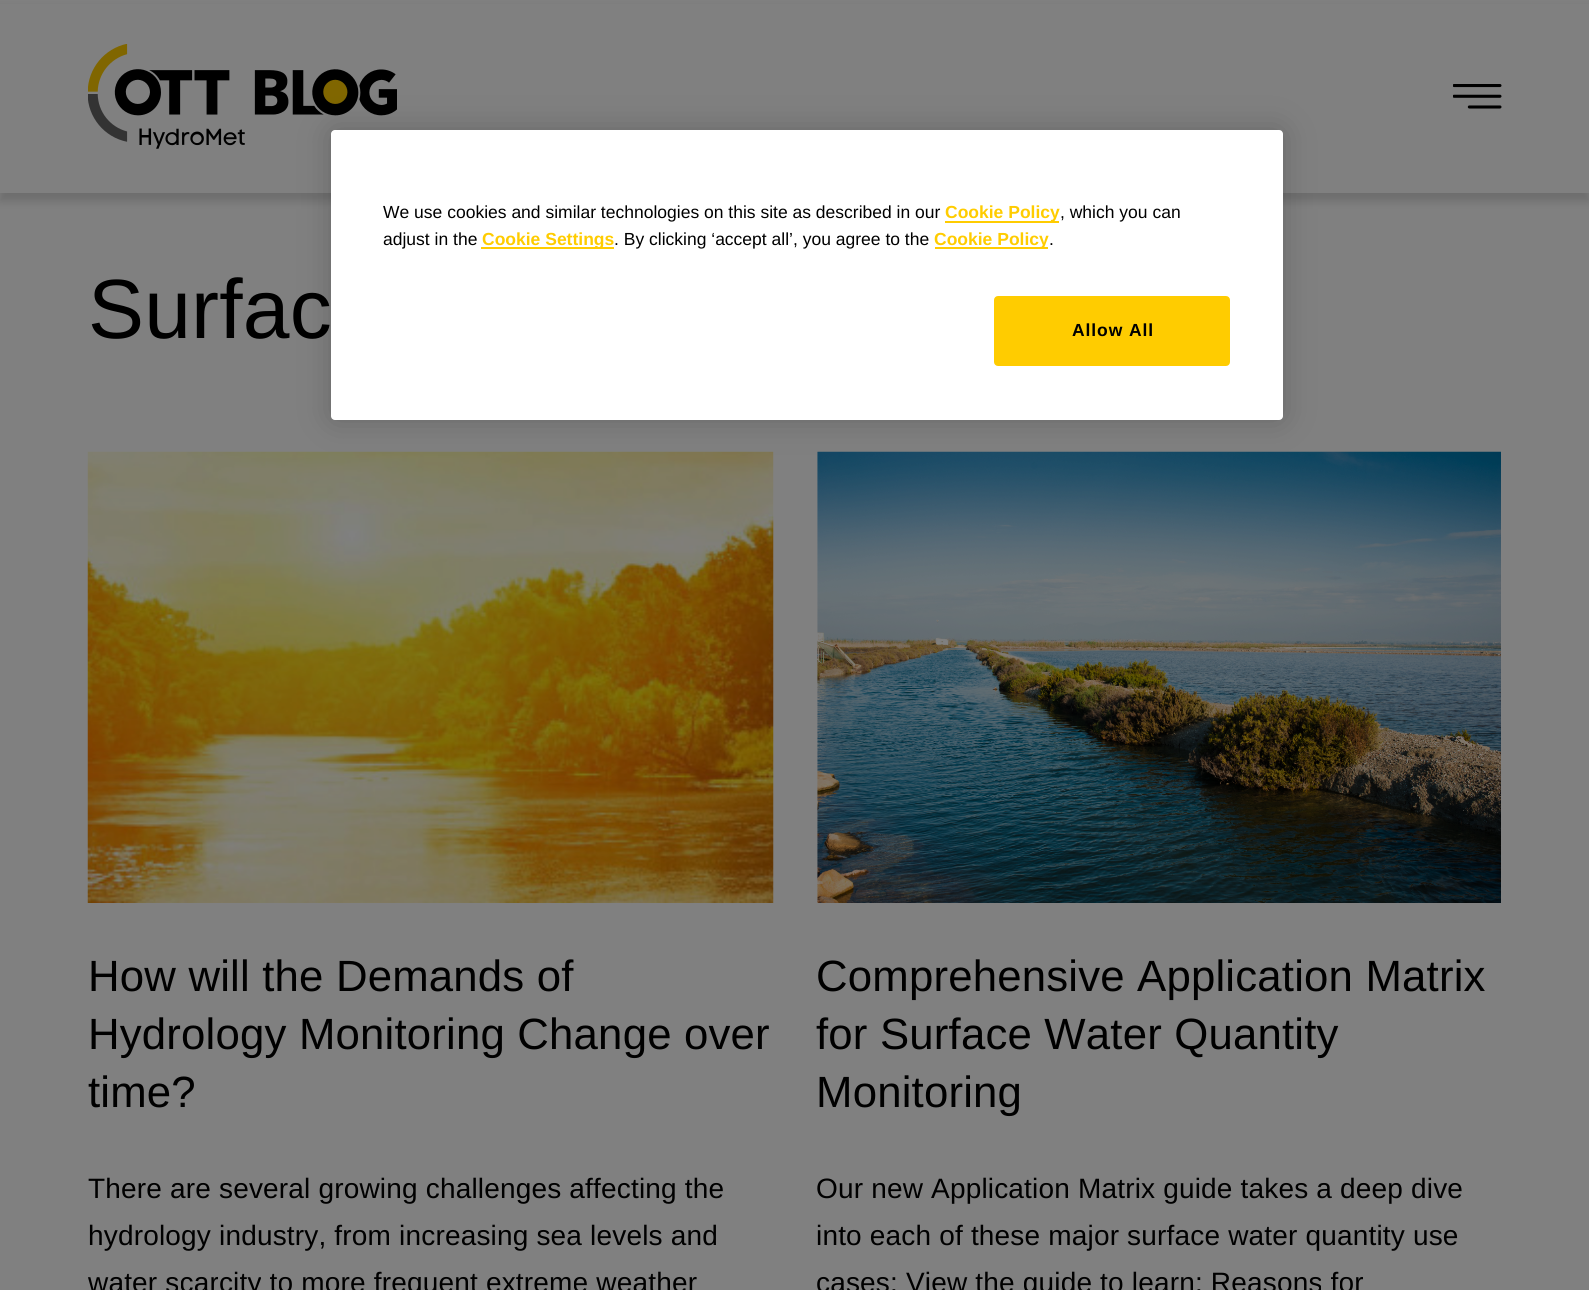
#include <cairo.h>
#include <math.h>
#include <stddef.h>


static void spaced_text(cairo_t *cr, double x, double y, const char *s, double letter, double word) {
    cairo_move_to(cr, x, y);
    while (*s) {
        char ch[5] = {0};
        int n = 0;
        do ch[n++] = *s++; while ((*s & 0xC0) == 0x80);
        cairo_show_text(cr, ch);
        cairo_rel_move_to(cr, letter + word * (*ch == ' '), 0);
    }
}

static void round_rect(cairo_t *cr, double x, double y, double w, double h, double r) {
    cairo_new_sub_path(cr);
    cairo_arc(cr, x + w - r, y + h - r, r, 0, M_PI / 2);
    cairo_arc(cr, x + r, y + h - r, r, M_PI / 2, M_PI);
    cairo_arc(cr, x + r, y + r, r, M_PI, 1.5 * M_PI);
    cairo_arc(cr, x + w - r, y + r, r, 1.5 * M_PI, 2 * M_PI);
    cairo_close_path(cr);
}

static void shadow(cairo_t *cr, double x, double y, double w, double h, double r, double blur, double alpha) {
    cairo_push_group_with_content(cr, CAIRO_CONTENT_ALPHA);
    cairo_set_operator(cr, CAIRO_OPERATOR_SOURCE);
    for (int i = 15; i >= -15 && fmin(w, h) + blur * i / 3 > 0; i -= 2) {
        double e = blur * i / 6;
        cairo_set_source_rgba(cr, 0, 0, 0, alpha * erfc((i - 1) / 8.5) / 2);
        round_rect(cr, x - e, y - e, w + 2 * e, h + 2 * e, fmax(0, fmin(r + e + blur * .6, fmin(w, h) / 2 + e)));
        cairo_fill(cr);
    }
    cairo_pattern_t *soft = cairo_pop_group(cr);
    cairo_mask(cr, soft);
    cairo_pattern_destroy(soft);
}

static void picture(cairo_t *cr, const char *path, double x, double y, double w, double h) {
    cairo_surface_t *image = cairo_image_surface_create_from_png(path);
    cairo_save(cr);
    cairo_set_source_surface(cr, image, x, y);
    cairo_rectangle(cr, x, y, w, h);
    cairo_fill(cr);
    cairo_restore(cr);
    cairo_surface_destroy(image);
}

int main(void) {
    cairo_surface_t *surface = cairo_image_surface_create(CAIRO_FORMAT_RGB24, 1589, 1290);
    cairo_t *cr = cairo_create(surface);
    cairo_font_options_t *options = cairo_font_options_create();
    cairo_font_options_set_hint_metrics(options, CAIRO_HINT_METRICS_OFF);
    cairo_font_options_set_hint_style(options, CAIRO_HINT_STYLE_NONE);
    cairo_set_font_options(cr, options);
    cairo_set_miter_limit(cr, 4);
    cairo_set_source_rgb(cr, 0.502, 0.502, 0.502);
    cairo_paint(cr);
    cairo_set_source_rgb(cr, 0, 0, 0);
    shadow(cr, 0, 9, 1589, 192, 0, 4.5, 0.15);
    cairo_set_source_rgb(cr, 0.502, 0.502, 0.502);
    cairo_rectangle(cr, 0, 4, 1589, 189);
    cairo_fill(cr);
    picture(cr, "img1.png", 88, 44, 309, 105);
    picture(cr, "img2.png", 1453, 84, 49, 25);
    picture(cr, "img3.png", 87, 451, 687, 452);
    picture(cr, "img4.png", 817, 451, 684, 452);
    cairo_set_source_rgb(cr, 0, 0, 0);
    shadow(cr, 331, 130, 952, 290, 4, 16, 0.2);
    cairo_set_source_rgb(cr, 1, 1, 1);
    round_rect(cr, 331, 130, 952, 290, 4);
    cairo_fill(cr);
    cairo_select_font_face(cr, "Liberation Sans", CAIRO_FONT_SLANT_NORMAL, CAIRO_FONT_WEIGHT_NORMAL);
    cairo_set_font_size(cr, 17.5);
    cairo_set_source_rgb(cr, 0, 0, 0);
    cairo_move_to(cr, 383, 218);
    cairo_show_text(cr, "We use cookies and similar technologies on this site as described in our");
    cairo_set_source_rgb(cr, 1, 0.8, 0);
    cairo_rectangle(cr, 945, 221, 114, 2);
    cairo_fill(cr);
    cairo_select_font_face(cr, "Liberation Sans", CAIRO_FONT_SLANT_NORMAL, CAIRO_FONT_WEIGHT_BOLD);
    cairo_move_to(cr, 945, 218);
    cairo_show_text(cr, "Cookie Policy");
    cairo_select_font_face(cr, "Liberation Sans", CAIRO_FONT_SLANT_NORMAL, CAIRO_FONT_WEIGHT_NORMAL);
    cairo_set_source_rgb(cr, 0, 0, 0);
    cairo_move_to(cr, 1060, 218);
    cairo_show_text(cr, ", which you can");
    cairo_move_to(cr, 383, 245);
    cairo_show_text(cr, "adjust in the");
    cairo_set_source_rgb(cr, 1, 0.8, 0);
    cairo_rectangle(cr, 481, 247, 133, 2);
    cairo_fill(cr);
    cairo_select_font_face(cr, "Liberation Sans", CAIRO_FONT_SLANT_NORMAL, CAIRO_FONT_WEIGHT_BOLD);
    cairo_move_to(cr, 482, 245);
    cairo_show_text(cr, "Cookie Settings");
    cairo_select_font_face(cr, "Liberation Sans", CAIRO_FONT_SLANT_NORMAL, CAIRO_FONT_WEIGHT_NORMAL);
    cairo_set_source_rgb(cr, 0, 0, 0);
    cairo_move_to(cr, 614, 245);
    cairo_show_text(cr, ". By clicking ‘accept all’, you agree to the");
    cairo_set_source_rgb(cr, 1, 0.8, 0);
    cairo_rectangle(cr, 935, 247, 113, 2);
    cairo_fill(cr);
    cairo_select_font_face(cr, "Liberation Sans", CAIRO_FONT_SLANT_NORMAL, CAIRO_FONT_WEIGHT_BOLD);
    cairo_move_to(cr, 934, 245);
    cairo_show_text(cr, "Cookie Policy");
    cairo_select_font_face(cr, "Liberation Sans", CAIRO_FONT_SLANT_NORMAL, CAIRO_FONT_WEIGHT_NORMAL);
    cairo_set_source_rgb(cr, 0, 0, 0);
    cairo_move_to(cr, 1049, 245);
    cairo_show_text(cr, ".");
    cairo_set_source_rgb(cr, 1, 0.8, 0);
    round_rect(cr, 995, 297, 234, 68, 3);
    cairo_fill_preserve(cr);
    cairo_stroke(cr);
    cairo_select_font_face(cr, "Liberation Sans", CAIRO_FONT_SLANT_NORMAL, CAIRO_FONT_WEIGHT_BOLD);
    cairo_set_source_rgb(cr, 0, 0, 0);
    spaced_text(cr, 1072, 336, "Allow All", 0.9, 0);
    cairo_select_font_face(cr, "Liberation Sans", CAIRO_FONT_SLANT_NORMAL, CAIRO_FONT_WEIGHT_NORMAL);
    cairo_set_font_size(cr, 84);
    spaced_text(cr, 88, 338, "Surfac", 0.18, 0);
    cairo_set_font_size(cr, 43.75);
    spaced_text(cr, 88, 991, "How will the Demands of", 0.18, 0);
    spaced_text(cr, 88, 1049, "Hydrology Monitoring Change over", 0.18, 0);
    spaced_text(cr, 88, 1107, "time?", 0.18, 0);
    cairo_set_font_size(cr, 28);
    spaced_text(cr, 88, 1198, "There are several growing challenges affecting the", 0.18, 0);
    spaced_text(cr, 88, 1245, "hydrology industry, from increasing sea levels and", 0.18, 0);
    spaced_text(cr, 88, 1292, "water scarcity to more frequent extreme weather", 0.18, 0);
    cairo_set_font_size(cr, 43.75);
    spaced_text(cr, 816, 991, "Comprehensive Application Matrix", 0.18, 0);
    spaced_text(cr, 816, 1049, "for Surface Water Quantity", 0.18, 0);
    spaced_text(cr, 816, 1107, "Monitoring", 0.18, 0);
    cairo_set_font_size(cr, 28);
    spaced_text(cr, 816, 1198, "Our new Application Matrix guide takes a deep dive", 0.18, 0);
    spaced_text(cr, 816, 1245, "into each of these major surface water quantity use", 0.18, 0);
    spaced_text(cr, 816, 1292, "cases: View the guide to learn: Reasons for", 0.18, 0);
    cairo_surface_write_to_png(surface, "page.png");
    cairo_font_options_destroy(options);
    cairo_destroy(cr);
    cairo_surface_destroy(surface);
    return 0;
}
